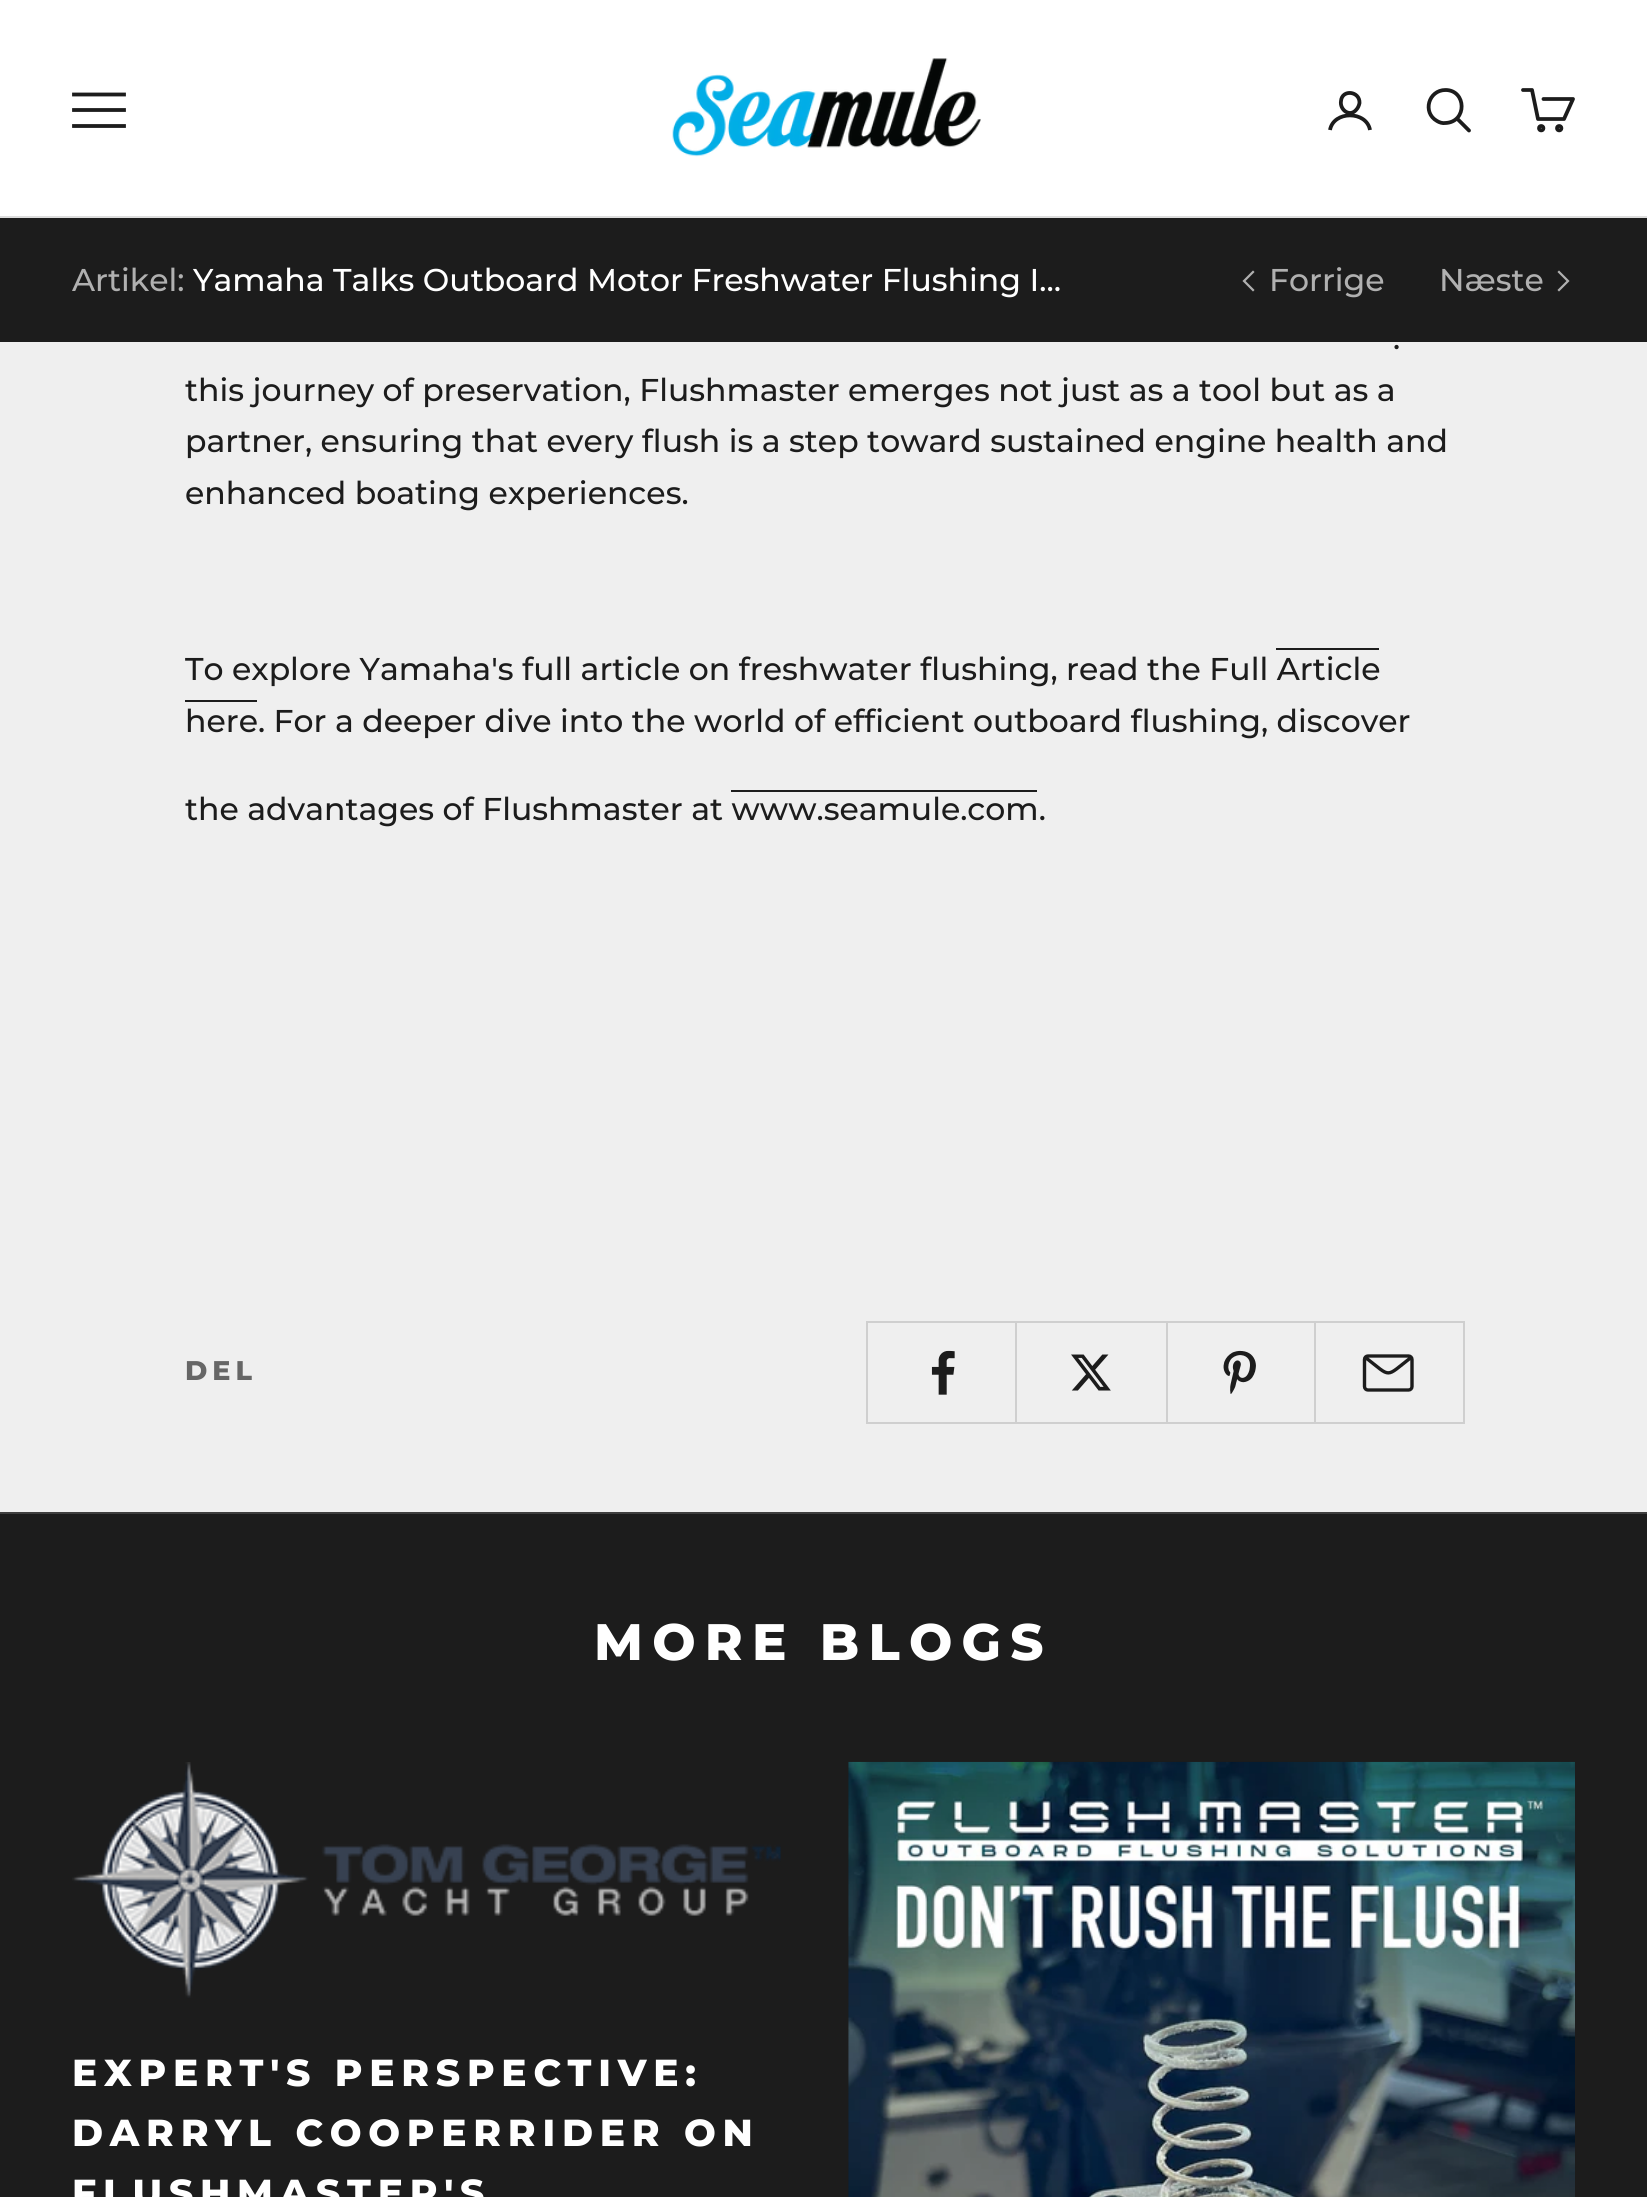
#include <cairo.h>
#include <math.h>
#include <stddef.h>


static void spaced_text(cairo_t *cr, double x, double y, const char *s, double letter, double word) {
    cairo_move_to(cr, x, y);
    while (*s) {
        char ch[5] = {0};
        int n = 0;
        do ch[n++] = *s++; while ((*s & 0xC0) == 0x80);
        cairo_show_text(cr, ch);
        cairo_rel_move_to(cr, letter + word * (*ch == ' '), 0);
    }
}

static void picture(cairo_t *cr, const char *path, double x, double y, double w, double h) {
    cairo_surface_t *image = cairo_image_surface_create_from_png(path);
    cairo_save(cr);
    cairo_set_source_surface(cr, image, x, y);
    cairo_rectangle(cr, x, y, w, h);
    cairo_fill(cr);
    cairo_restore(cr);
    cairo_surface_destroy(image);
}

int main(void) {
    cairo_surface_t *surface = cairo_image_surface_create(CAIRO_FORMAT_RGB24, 1647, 2197);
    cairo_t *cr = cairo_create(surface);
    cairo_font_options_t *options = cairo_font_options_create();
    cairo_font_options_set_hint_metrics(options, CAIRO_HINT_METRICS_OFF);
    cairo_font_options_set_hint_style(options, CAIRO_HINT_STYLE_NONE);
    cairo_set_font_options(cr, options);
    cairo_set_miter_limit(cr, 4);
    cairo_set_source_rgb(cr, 0.937, 0.937, 0.937);
    cairo_paint(cr);
    cairo_set_source_rgb(cr, 1, 1, 1);
    cairo_rectangle(cr, 0, 0, 1647, 216);
    cairo_fill(cr);
    cairo_set_source_rgb(cr, 0.867, 0.867, 0.867);
    cairo_rectangle(cr, 0, 216, 1647, 2);
    cairo_fill(cr);
    cairo_new_path(cr);
    cairo_move_to(cr, 74, 126);
    cairo_line_to(cr, 124, 126);
    cairo_move_to(cr, 74, 110);
    cairo_line_to(cr, 124, 110);
    cairo_move_to(cr, 74, 94.5);
    cairo_line_to(cr, 124, 94.5);
    cairo_set_source_rgb(cr, 0.11, 0.11, 0.11);
    cairo_set_line_width(cr, 3.8);
    cairo_set_line_cap(cr, CAIRO_LINE_CAP_SQUARE);
    cairo_stroke(cr);
    picture(cr, "img1.png", 672, 58, 309, 99);
    cairo_new_path(cr);
    cairo_move_to(cr, 1359.5, 103);
    cairo_curve_to(cr, 1359, 105.5, 1358, 108, 1356, 110);
    cairo_curve_to(cr, 1349.5, 117.5, 1339.5, 109.5, 1341, 101);
    cairo_curve_to(cr, 1342, 89, 1360, 91, 1359.5, 103);
    cairo_close_path(cr);
    cairo_set_line_cap(cr, CAIRO_LINE_CAP_ROUND);
    cairo_set_line_join(cr, CAIRO_LINE_JOIN_ROUND);
    cairo_stroke(cr);
    cairo_new_path(cr);
    cairo_move_to(cr, 1330, 130);
    cairo_curve_to(cr, 1333.5, 110.5, 1366.5, 110.5, 1370, 130);
    cairo_set_line_cap(cr, CAIRO_LINE_CAP_BUTT);
    cairo_set_line_join(cr, CAIRO_LINE_JOIN_MITER);
    cairo_stroke(cr);
    cairo_new_path(cr);
    cairo_move_to(cr, 1445.5, 90);
    cairo_curve_to(cr, 1428.5, 90, 1422, 112.5, 1437, 121);
    cairo_curve_to(cr, 1439.5, 122.5, 1442.5, 123.5, 1445.5, 123);
    cairo_curve_to(cr, 1467.5, 122, 1466.5, 90, 1445.5, 90);
    cairo_close_path(cr);
    cairo_stroke(cr);
    cairo_new_path(cr);
    cairo_move_to(cr, 1457.5, 119);
    cairo_line_to(cr, 1469, 130.5);
    cairo_set_line_cap(cr, CAIRO_LINE_CAP_ROUND);
    cairo_stroke(cr);
    cairo_new_path(cr);
    cairo_move_to(cr, 1543.5, 99);
    cairo_line_to(cr, 1573, 99);
    cairo_line_to(cr, 1564, 119);
    cairo_line_to(cr, 1538, 119);
    cairo_line_to(cr, 1532, 90);
    cairo_line_to(cr, 1523, 90);
    cairo_set_line_join(cr, CAIRO_LINE_JOIN_ROUND);
    cairo_stroke(cr);
    cairo_arc(cr, 1541.2, 128.2, 2.2, 0, 2 * M_PI);
    cairo_set_line_cap(cr, CAIRO_LINE_CAP_BUTT);
    cairo_set_line_join(cr, CAIRO_LINE_JOIN_MITER);
    cairo_stroke(cr);
    cairo_arc(cr, 1559.2, 128.2, 2.2, 0, 2 * M_PI);
    cairo_stroke(cr);
    cairo_rectangle(cr, 0, 218, 1647, 124);
    cairo_fill(cr);
    cairo_select_font_face(cr, "Montserrat Medium", CAIRO_FONT_SLANT_NORMAL, CAIRO_FONT_WEIGHT_NORMAL);
    cairo_set_font_size(cr, 31.5);
    cairo_set_source_rgb(cr, 0.69, 0.69, 0.69);
    cairo_move_to(cr, 72, 291);
    cairo_show_text(cr, "Artikel:");
    cairo_set_source_rgb(cr, 1, 1, 1);
    cairo_move_to(cr, 193, 291);
    cairo_show_text(cr, "Yamaha Talks Outboard Motor Freshwater Flushing I…");
    cairo_new_path(cr);
    cairo_move_to(cr, 1253, 272);
    cairo_line_to(cr, 1244, 281);
    cairo_line_to(cr, 1253, 290);
    cairo_set_source_rgb(cr, 0.69, 0.69, 0.69);
    cairo_set_line_width(cr, 2.2);
    cairo_set_line_cap(cr, CAIRO_LINE_CAP_SQUARE);
    cairo_stroke(cr);
    cairo_move_to(cr, 1269, 291);
    cairo_show_text(cr, "Forrige");
    cairo_move_to(cr, 1439, 291);
    cairo_show_text(cr, "Næste");
    cairo_new_path(cr);
    cairo_move_to(cr, 1559, 290);
    cairo_line_to(cr, 1568, 281);
    cairo_line_to(cr, 1559, 272);
    cairo_stroke(cr);
    cairo_set_source_rgb(cr, 0.11, 0.11, 0.11);
    cairo_move_to(cr, 1393, 349);
    cairo_show_text(cr, ".");
    cairo_move_to(cr, 185, 401);
    cairo_show_text(cr, "this journey of preservation, Flushmaster emerges not just as a tool but as a");
    cairo_move_to(cr, 185, 452);
    cairo_show_text(cr, "partner, ensuring that every flush is a step toward sustained engine health and");
    cairo_move_to(cr, 185, 504);
    cairo_show_text(cr, "enhanced boating experiences.");
    cairo_move_to(cr, 185, 680);
    cairo_show_text(cr, "To explore Yamaha's full article on freshwater flushing, read the Full Article");
    cairo_move_to(cr, 185, 732);
    cairo_show_text(cr, "here. For a deeper dive into the world of efficient outboard flushing, discover");
    cairo_rectangle(cr, 1276, 648, 103, 2);
    cairo_fill(cr);
    cairo_rectangle(cr, 185, 700, 72, 2);
    cairo_fill(cr);
    cairo_rectangle(cr, 731, 790, 306, 2);
    cairo_fill(cr);
    cairo_move_to(cr, 185, 820);
    cairo_show_text(cr, "the advantages of Flushmaster at www.seamule.com.");
    cairo_select_font_face(cr, "Montserrat ExtraBold", CAIRO_FONT_SLANT_NORMAL, CAIRO_FONT_WEIGHT_NORMAL);
    cairo_set_font_size(cr, 27);
    cairo_set_source_rgb(cr, 0.4, 0.4, 0.4);
    spaced_text(cr, 185, 1380, "DEL", 5, 0);
    cairo_rectangle(cr, 867, 1322, 149, 101);
    cairo_set_source_rgb(cr, 0.812, 0.812, 0.812);
    cairo_set_line_width(cr, 2);
    cairo_set_line_cap(cr, CAIRO_LINE_CAP_BUTT);
    cairo_stroke(cr);
    picture(cr, "img2.png", 931, 1350, 24, 45);
    cairo_rectangle(cr, 1016, 1322, 151, 101);
    cairo_stroke(cr);
    picture(cr, "img3.png", 1071, 1354, 40, 37);
    cairo_rectangle(cr, 1167, 1322, 148, 101);
    cairo_stroke(cr);
    picture(cr, "img4.png", 1223, 1350, 33, 44);
    cairo_rectangle(cr, 1315, 1322, 149, 101);
    cairo_stroke(cr);
    cairo_new_path(cr);
    cairo_move_to(cr, 1364.5, 1359.5);
    cairo_curve_to(cr, 1364.5, 1357.5, 1366, 1356, 1368, 1356);
    cairo_line_to(cr, 1408.5, 1356);
    cairo_curve_to(cr, 1410.5, 1356, 1412, 1357.5, 1412, 1359.5);
    cairo_line_to(cr, 1412, 1386.5);
    cairo_curve_to(cr, 1412, 1388.5, 1410.5, 1390, 1408.5, 1390);
    cairo_line_to(cr, 1368, 1390);
    cairo_curve_to(cr, 1366, 1390, 1364.5, 1388.5, 1364.5, 1386.5);
    cairo_close_path(cr);
    cairo_move_to(cr, 1411, 1357.5);
    cairo_curve_to(cr, 1384.5, 1378, 1392, 1378, 1365.5, 1357.5);
    cairo_set_source_rgb(cr, 0.11, 0.11, 0.11);
    cairo_set_line_width(cr, 3.4);
    cairo_set_line_cap(cr, CAIRO_LINE_CAP_ROUND);
    cairo_set_line_join(cr, CAIRO_LINE_JOIN_ROUND);
    cairo_stroke(cr);
    cairo_rectangle(cr, 0, 1514, 1647, 683);
    cairo_fill(cr);
    cairo_set_source_rgb(cr, 0.243, 0.243, 0.243);
    cairo_rectangle(cr, 0, 1512, 1647, 2);
    cairo_fill(cr);
    cairo_set_font_size(cr, 51.25);
    cairo_set_source_rgb(cr, 1, 1, 1);
    spaced_text(cr, 594, 1660, "MORE BLOGS", 9.25, 0);
    picture(cr, "img5.png", 72, 1762, 709, 236);
    cairo_set_font_size(cr, 37.6);
    spaced_text(cr, 72, 2086, "EXPERT'S PERSPECTIVE:", 6.75, 0);
    spaced_text(cr, 72, 2146, "DARRYL COOPERRIDER ON", 6.75, 0);
    spaced_text(cr, 72, 2206, "FLUSHMASTER'S", 6.75, 0);
    picture(cr, "img6.png", 848, 1761, 727, 436);
    cairo_surface_write_to_png(surface, "page.png");
    cairo_font_options_destroy(options);
    cairo_destroy(cr);
    cairo_surface_destroy(surface);
    return 0;
}
